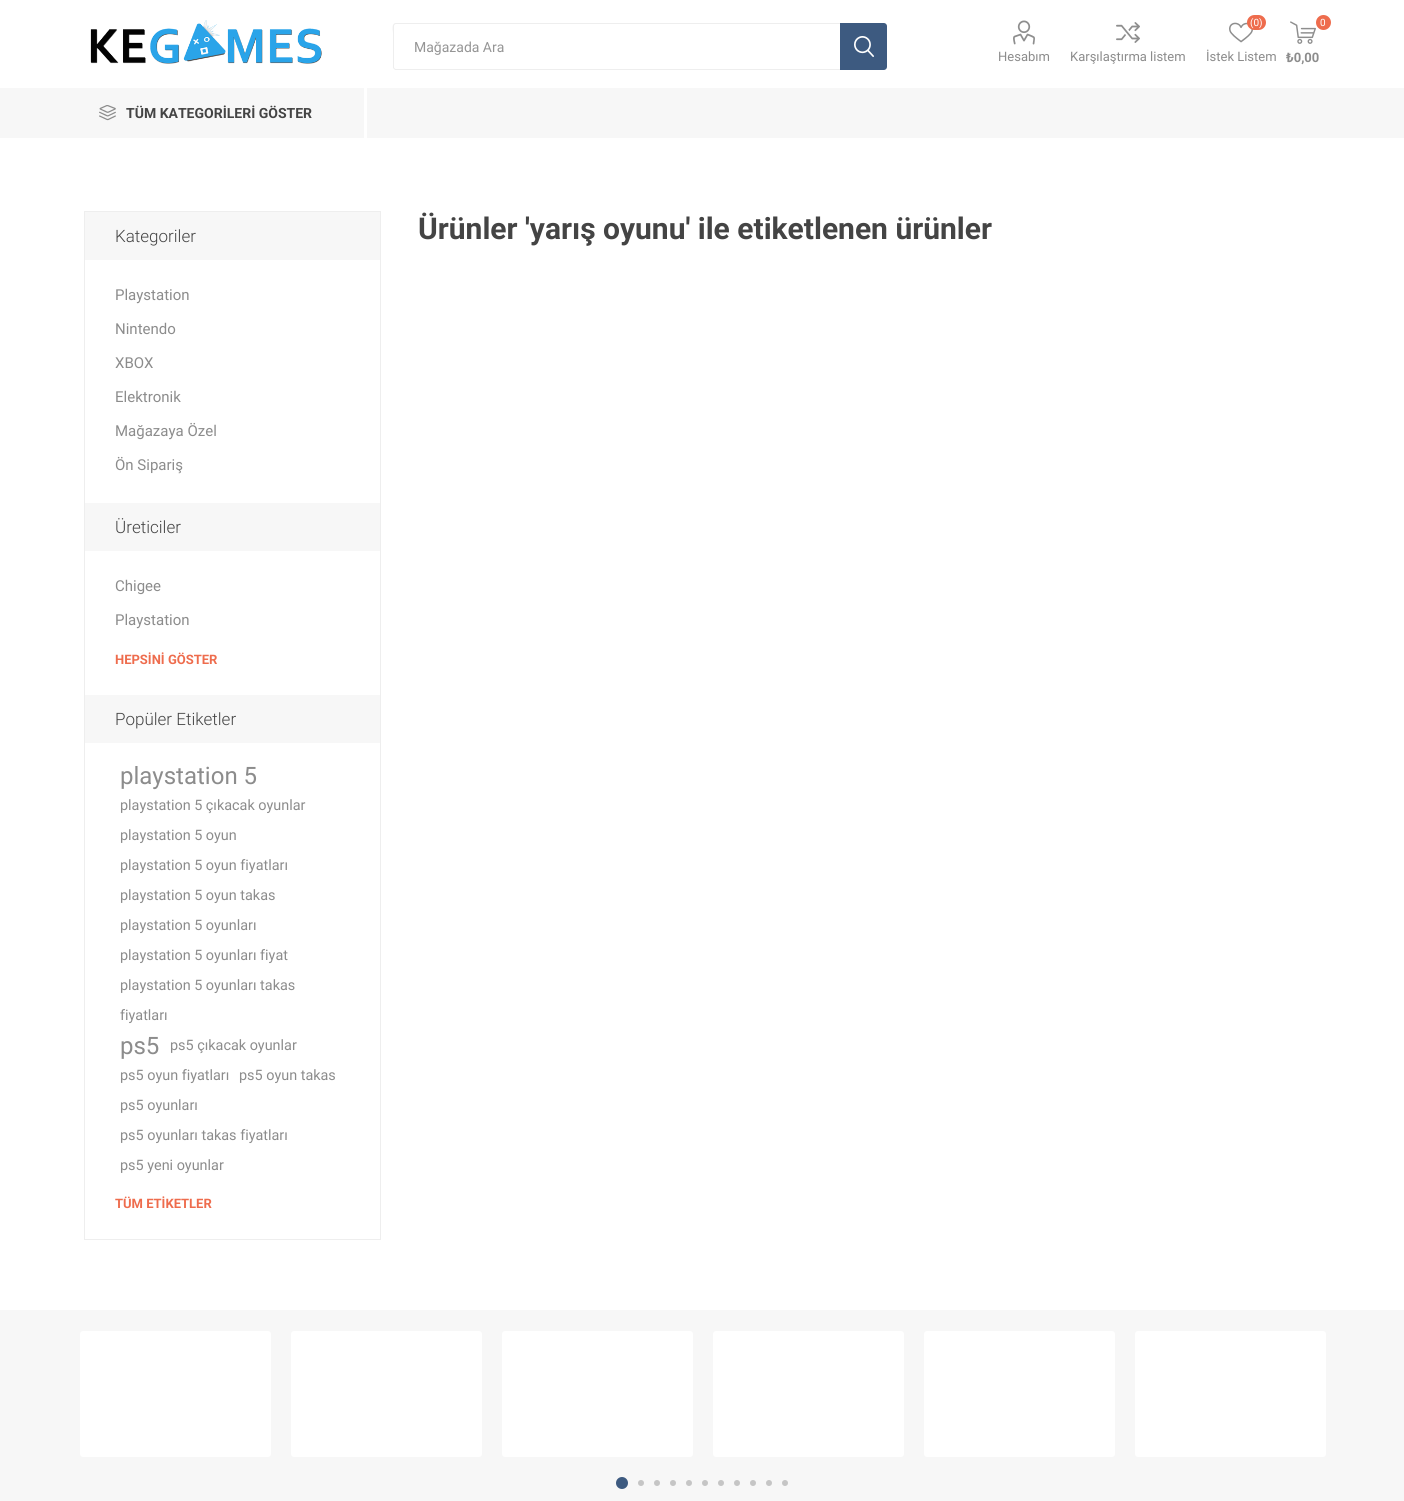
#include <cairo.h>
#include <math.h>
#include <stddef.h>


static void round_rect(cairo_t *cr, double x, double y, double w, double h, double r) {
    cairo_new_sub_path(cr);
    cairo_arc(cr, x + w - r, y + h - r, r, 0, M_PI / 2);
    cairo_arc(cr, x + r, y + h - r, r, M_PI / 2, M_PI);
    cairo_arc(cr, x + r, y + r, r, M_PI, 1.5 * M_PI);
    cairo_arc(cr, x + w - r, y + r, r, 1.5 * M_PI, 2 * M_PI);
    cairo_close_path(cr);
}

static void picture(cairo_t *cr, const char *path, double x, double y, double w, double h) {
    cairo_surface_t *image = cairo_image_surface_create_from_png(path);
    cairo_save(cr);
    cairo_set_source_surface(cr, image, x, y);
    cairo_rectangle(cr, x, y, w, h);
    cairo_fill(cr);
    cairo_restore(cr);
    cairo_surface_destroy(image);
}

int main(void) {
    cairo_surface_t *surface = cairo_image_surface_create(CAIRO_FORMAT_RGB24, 1404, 1501);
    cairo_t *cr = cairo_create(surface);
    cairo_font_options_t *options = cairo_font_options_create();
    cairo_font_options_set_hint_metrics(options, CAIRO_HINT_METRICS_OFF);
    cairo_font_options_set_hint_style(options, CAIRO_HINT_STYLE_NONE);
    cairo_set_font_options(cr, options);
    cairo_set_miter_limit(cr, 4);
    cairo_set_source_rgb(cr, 1, 1, 1);
    cairo_paint(cr);
    picture(cr, "img1.png", 90, 20, 232, 44);
    cairo_set_source_rgb(cr, 0.933, 0.933, 0.933);
    cairo_set_fill_rule(cr, CAIRO_FILL_RULE_EVEN_ODD);
    cairo_new_path(cr);
    cairo_move_to(cr, 396, 23);
    cairo_line_to(cr, 840, 23);
    cairo_line_to(cr, 840, 70);
    cairo_line_to(cr, 395, 70);
    cairo_line_to(cr, 393, 68);
    cairo_line_to(cr, 393, 33);
    cairo_curve_to(cr, 393, 31, 391, 23, 396, 23);
    cairo_close_path(cr);
    cairo_move_to(cr, 396, 24);
    cairo_line_to(cr, 840, 24);
    cairo_line_to(cr, 840, 69);
    cairo_line_to(cr, 396, 69);
    cairo_curve_to(cr, 395, 69, 394, 68, 394, 67);
    cairo_line_to(cr, 394, 26);
    cairo_curve_to(cr, 394, 25, 395, 24, 396, 24);
    cairo_close_path(cr);
    cairo_fill(cr);
    cairo_select_font_face(cr, "Roboto", CAIRO_FONT_SLANT_NORMAL, CAIRO_FONT_WEIGHT_NORMAL);
    cairo_set_font_size(cr, 14);
    cairo_set_source_rgb(cr, 0.584, 0.584, 0.584);
    cairo_move_to(cr, 414, 52);
    cairo_show_text(cr, "Mağazada Ara");
    cairo_set_source_rgb(cr, 0.239, 0.353, 0.502);
    cairo_new_path(cr);
    cairo_move_to(cr, 840, 23);
    cairo_line_to(cr, 884, 23);
    cairo_curve_to(cr, 885.5, 23, 887, 24.5, 887, 26);
    cairo_line_to(cr, 887, 67);
    cairo_curve_to(cr, 887, 68.5, 885.5, 70, 884, 70);
    cairo_line_to(cr, 840, 70);
    cairo_close_path(cr);
    cairo_fill(cr);
    picture(cr, "img2.png", 854, 36, 20, 21);
    picture(cr, "img3.png", 1013, 20, 22, 25);
    cairo_set_font_size(cr, 13);
    cairo_set_source_rgb(cr, 0.549, 0.549, 0.549);
    cairo_move_to(cr, 998, 61);
    cairo_show_text(cr, "Hesabım");
    picture(cr, "img4.png", 1116, 22, 24, 21);
    cairo_move_to(cr, 1070, 61);
    cairo_show_text(cr, "Karşılaştırma listem");
    picture(cr, "img5.png", 1229, 22, 24, 21);
    cairo_set_source_rgb(cr, 0.933, 0.424, 0.302);
    round_rect(cr, 1247, 15, 19, 15, 7.5);
    cairo_fill(cr);
    cairo_set_font_size(cr, 10);
    cairo_set_source_rgb(cr, 1, 1, 1);
    cairo_move_to(cr, 1250, 26);
    cairo_show_text(cr, "(0)");
    cairo_set_font_size(cr, 13);
    cairo_set_source_rgb(cr, 0.549, 0.549, 0.549);
    cairo_move_to(cr, 1206, 61);
    cairo_show_text(cr, "İstek Listem");
    picture(cr, "img6.png", 1290, 21, 26, 23);
    cairo_set_source_rgb(cr, 0.933, 0.424, 0.302);
    cairo_arc(cr, 1323.5, 22.5, 7.5, 0, 2 * M_PI);
    cairo_fill(cr);
    cairo_set_font_size(cr, 10);
    cairo_set_source_rgb(cr, 1, 1, 1);
    cairo_move_to(cr, 1320, 26);
    cairo_show_text(cr, "0");
    cairo_select_font_face(cr, "Roboto", CAIRO_FONT_SLANT_NORMAL, CAIRO_FONT_WEIGHT_BOLD);
    cairo_set_font_size(cr, 13);
    cairo_set_source_rgb(cr, 0.549, 0.549, 0.549);
    cairo_move_to(cr, 1286, 62);
    cairo_show_text(cr, "₺0,00");
    cairo_set_source_rgb(cr, 0.965, 0.965, 0.965);
    cairo_rectangle(cr, 0, 88, 1404, 50);
    cairo_fill(cr);
    cairo_set_source_rgb(cr, 1, 1, 1);
    cairo_rectangle(cr, 364, 88, 3, 50);
    cairo_fill(cr);
    picture(cr, "img7.png", 99, 105, 17, 16);
    cairo_set_font_size(cr, 14);
    cairo_set_source_rgb(cr, 0.267, 0.267, 0.267);
    cairo_move_to(cr, 126, 118);
    cairo_show_text(cr, "TÜM KATEGORİLERİ GÖSTER");
    cairo_rectangle(cr, 84.5, 211.5, 296, 1028);
    cairo_set_source_rgb(cr, 0.933, 0.933, 0.933);
    cairo_set_line_width(cr, 1);
    cairo_stroke(cr);
    cairo_set_source_rgb(cr, 0.965, 0.965, 0.965);
    cairo_rectangle(cr, 85, 212, 295, 48);
    cairo_fill(cr);
    cairo_select_font_face(cr, "Roboto Light", CAIRO_FONT_SLANT_NORMAL, CAIRO_FONT_WEIGHT_NORMAL);
    cairo_set_font_size(cr, 17);
    cairo_set_source_rgb(cr, 0.267, 0.267, 0.267);
    cairo_move_to(cr, 115, 242);
    cairo_show_text(cr, "Kategoriler");
    cairo_select_font_face(cr, "Roboto", CAIRO_FONT_SLANT_NORMAL, CAIRO_FONT_WEIGHT_NORMAL);
    cairo_set_font_size(cr, 15);
    cairo_set_source_rgb(cr, 0.549, 0.549, 0.549);
    cairo_move_to(cr, 115, 300);
    cairo_show_text(cr, "Playstation");
    cairo_move_to(cr, 115, 334);
    cairo_show_text(cr, "Nintendo");
    cairo_move_to(cr, 115, 368);
    cairo_show_text(cr, "XBOX");
    cairo_move_to(cr, 115, 402);
    cairo_show_text(cr, "Elektronik");
    cairo_move_to(cr, 115, 436);
    cairo_show_text(cr, "Mağazaya Özel");
    cairo_move_to(cr, 115, 470);
    cairo_show_text(cr, "Ön Sipariş");
    cairo_set_source_rgb(cr, 0.965, 0.965, 0.965);
    cairo_rectangle(cr, 85, 503, 295, 48);
    cairo_fill(cr);
    cairo_select_font_face(cr, "Roboto Light", CAIRO_FONT_SLANT_NORMAL, CAIRO_FONT_WEIGHT_NORMAL);
    cairo_set_font_size(cr, 17);
    cairo_set_source_rgb(cr, 0.267, 0.267, 0.267);
    cairo_move_to(cr, 115, 533);
    cairo_show_text(cr, "Üreticiler");
    cairo_select_font_face(cr, "Roboto", CAIRO_FONT_SLANT_NORMAL, CAIRO_FONT_WEIGHT_NORMAL);
    cairo_set_font_size(cr, 15);
    cairo_set_source_rgb(cr, 0.549, 0.549, 0.549);
    cairo_move_to(cr, 115, 591);
    cairo_show_text(cr, "Chigee");
    cairo_move_to(cr, 115, 625);
    cairo_show_text(cr, "Playstation");
    cairo_select_font_face(cr, "Roboto", CAIRO_FONT_SLANT_NORMAL, CAIRO_FONT_WEIGHT_BOLD);
    cairo_set_font_size(cr, 13);
    cairo_set_source_rgb(cr, 0.933, 0.424, 0.302);
    cairo_move_to(cr, 115, 664);
    cairo_show_text(cr, "HEPSİNİ GÖSTER");
    cairo_set_source_rgb(cr, 0.965, 0.965, 0.965);
    cairo_rectangle(cr, 85, 695, 295, 48);
    cairo_fill(cr);
    cairo_select_font_face(cr, "Roboto Light", CAIRO_FONT_SLANT_NORMAL, CAIRO_FONT_WEIGHT_NORMAL);
    cairo_set_font_size(cr, 17);
    cairo_set_source_rgb(cr, 0.267, 0.267, 0.267);
    cairo_move_to(cr, 115, 725);
    cairo_show_text(cr, "Popüler Etiketler");
    cairo_select_font_face(cr, "Roboto", CAIRO_FONT_SLANT_NORMAL, CAIRO_FONT_WEIGHT_NORMAL);
    cairo_set_font_size(cr, 24);
    cairo_set_source_rgb(cr, 0.549, 0.549, 0.549);
    cairo_move_to(cr, 120, 784);
    cairo_show_text(cr, "playstation 5");
    cairo_set_font_size(cr, 14.4);
    cairo_move_to(cr, 120, 810);
    cairo_show_text(cr, "playstation 5 çıkacak oyunlar");
    cairo_move_to(cr, 120, 840);
    cairo_show_text(cr, "playstation 5 oyun");
    cairo_move_to(cr, 120, 870);
    cairo_show_text(cr, "playstation 5 oyun fiyatları");
    cairo_move_to(cr, 120, 900);
    cairo_show_text(cr, "playstation 5 oyun takas");
    cairo_move_to(cr, 120, 930);
    cairo_show_text(cr, "playstation 5 oyunları");
    cairo_move_to(cr, 120, 960);
    cairo_show_text(cr, "playstation 5 oyunları fiyat");
    cairo_move_to(cr, 120, 990);
    cairo_show_text(cr, "playstation 5 oyunları takas");
    cairo_move_to(cr, 120, 1020);
    cairo_show_text(cr, "fiyatları");
    cairo_set_font_size(cr, 24);
    cairo_move_to(cr, 120, 1054);
    cairo_show_text(cr, "ps5");
    cairo_set_font_size(cr, 14.4);
    cairo_move_to(cr, 170, 1050);
    cairo_show_text(cr, "ps5 çıkacak oyunlar");
    cairo_move_to(cr, 120, 1080);
    cairo_show_text(cr, "ps5 oyun fiyatları");
    cairo_move_to(cr, 239, 1080);
    cairo_show_text(cr, "ps5 oyun takas");
    cairo_move_to(cr, 120, 1110);
    cairo_show_text(cr, "ps5 oyunları");
    cairo_move_to(cr, 120, 1140);
    cairo_show_text(cr, "ps5 oyunları takas fiyatları");
    cairo_move_to(cr, 120, 1170);
    cairo_show_text(cr, "ps5 yeni oyunlar");
    cairo_select_font_face(cr, "Roboto", CAIRO_FONT_SLANT_NORMAL, CAIRO_FONT_WEIGHT_BOLD);
    cairo_set_font_size(cr, 13);
    cairo_set_source_rgb(cr, 0.933, 0.424, 0.302);
    cairo_move_to(cr, 115, 1208);
    cairo_show_text(cr, "TÜM ETİKETLER");
    cairo_set_font_size(cr, 30);
    cairo_set_source_rgb(cr, 0.267, 0.267, 0.267);
    cairo_move_to(cr, 418, 239);
    cairo_show_text(cr, "Ürünler 'yarış oyunu' ile etiketlenen ürünler");
    cairo_set_source_rgb(cr, 0.965, 0.965, 0.965);
    cairo_rectangle(cr, 0, 1310, 1404, 191);
    cairo_fill(cr);
    cairo_set_source_rgb(cr, 1, 1, 1);
    round_rect(cr, 80, 1331, 191, 126, 3);
    cairo_fill(cr);
    round_rect(cr, 291, 1331, 191, 126, 3);
    cairo_fill(cr);
    round_rect(cr, 502, 1331, 191, 126, 3);
    cairo_fill(cr);
    round_rect(cr, 713, 1331, 191, 126, 3);
    cairo_fill(cr);
    round_rect(cr, 924, 1331, 191, 126, 3);
    cairo_fill(cr);
    round_rect(cr, 1135, 1331, 191, 126, 3);
    cairo_fill(cr);
    cairo_set_source_rgb(cr, 0.239, 0.353, 0.502);
    cairo_arc(cr, 622, 1483, 6, 0, 2 * M_PI);
    cairo_fill(cr);
    cairo_set_source_rgb(cr, 0.773, 0.773, 0.773);
    cairo_arc(cr, 641, 1483, 3, 0, 2 * M_PI);
    cairo_fill(cr);
    cairo_arc(cr, 657, 1483, 3, 0, 2 * M_PI);
    cairo_fill(cr);
    cairo_arc(cr, 673, 1483, 3, 0, 2 * M_PI);
    cairo_fill(cr);
    cairo_arc(cr, 689, 1483, 3, 0, 2 * M_PI);
    cairo_fill(cr);
    cairo_arc(cr, 705, 1483, 3, 0, 2 * M_PI);
    cairo_fill(cr);
    cairo_arc(cr, 721, 1483, 3, 0, 2 * M_PI);
    cairo_fill(cr);
    cairo_arc(cr, 737, 1483, 3, 0, 2 * M_PI);
    cairo_fill(cr);
    cairo_arc(cr, 753, 1483, 3, 0, 2 * M_PI);
    cairo_fill(cr);
    cairo_arc(cr, 769, 1483, 3, 0, 2 * M_PI);
    cairo_fill(cr);
    cairo_arc(cr, 785, 1483, 3, 0, 2 * M_PI);
    cairo_fill(cr);
    cairo_surface_write_to_png(surface, "page.png");
    cairo_font_options_destroy(options);
    cairo_destroy(cr);
    cairo_surface_destroy(surface);
    return 0;
}
